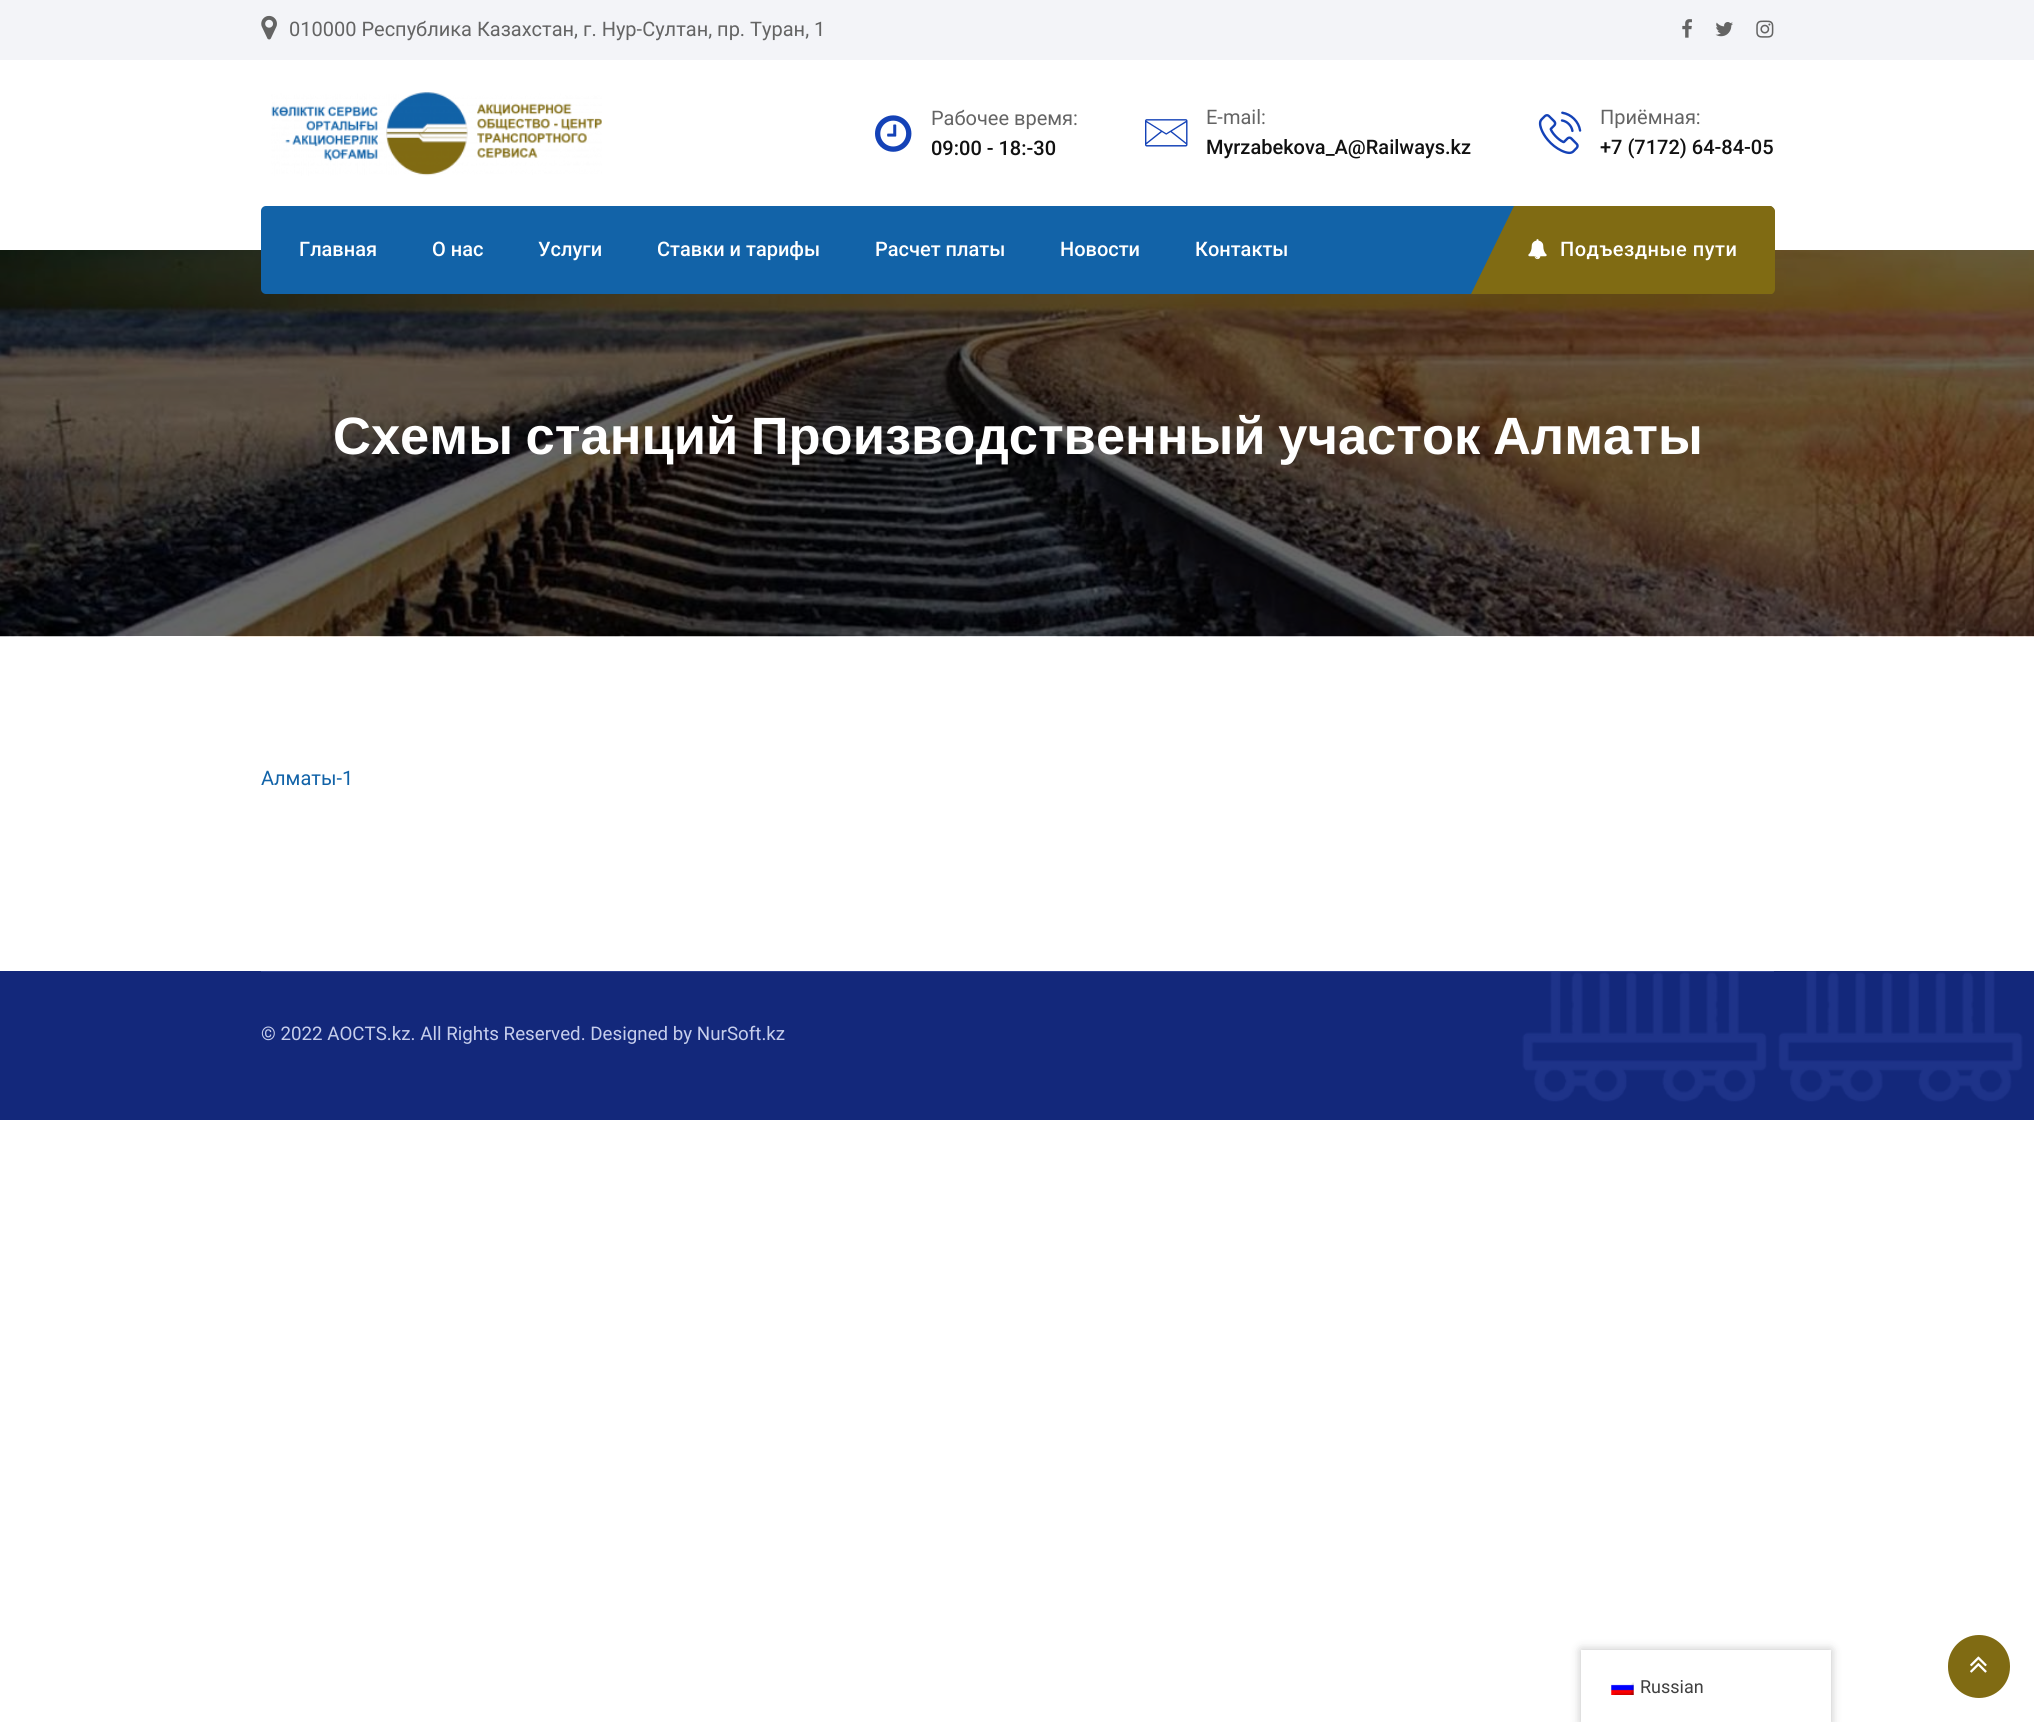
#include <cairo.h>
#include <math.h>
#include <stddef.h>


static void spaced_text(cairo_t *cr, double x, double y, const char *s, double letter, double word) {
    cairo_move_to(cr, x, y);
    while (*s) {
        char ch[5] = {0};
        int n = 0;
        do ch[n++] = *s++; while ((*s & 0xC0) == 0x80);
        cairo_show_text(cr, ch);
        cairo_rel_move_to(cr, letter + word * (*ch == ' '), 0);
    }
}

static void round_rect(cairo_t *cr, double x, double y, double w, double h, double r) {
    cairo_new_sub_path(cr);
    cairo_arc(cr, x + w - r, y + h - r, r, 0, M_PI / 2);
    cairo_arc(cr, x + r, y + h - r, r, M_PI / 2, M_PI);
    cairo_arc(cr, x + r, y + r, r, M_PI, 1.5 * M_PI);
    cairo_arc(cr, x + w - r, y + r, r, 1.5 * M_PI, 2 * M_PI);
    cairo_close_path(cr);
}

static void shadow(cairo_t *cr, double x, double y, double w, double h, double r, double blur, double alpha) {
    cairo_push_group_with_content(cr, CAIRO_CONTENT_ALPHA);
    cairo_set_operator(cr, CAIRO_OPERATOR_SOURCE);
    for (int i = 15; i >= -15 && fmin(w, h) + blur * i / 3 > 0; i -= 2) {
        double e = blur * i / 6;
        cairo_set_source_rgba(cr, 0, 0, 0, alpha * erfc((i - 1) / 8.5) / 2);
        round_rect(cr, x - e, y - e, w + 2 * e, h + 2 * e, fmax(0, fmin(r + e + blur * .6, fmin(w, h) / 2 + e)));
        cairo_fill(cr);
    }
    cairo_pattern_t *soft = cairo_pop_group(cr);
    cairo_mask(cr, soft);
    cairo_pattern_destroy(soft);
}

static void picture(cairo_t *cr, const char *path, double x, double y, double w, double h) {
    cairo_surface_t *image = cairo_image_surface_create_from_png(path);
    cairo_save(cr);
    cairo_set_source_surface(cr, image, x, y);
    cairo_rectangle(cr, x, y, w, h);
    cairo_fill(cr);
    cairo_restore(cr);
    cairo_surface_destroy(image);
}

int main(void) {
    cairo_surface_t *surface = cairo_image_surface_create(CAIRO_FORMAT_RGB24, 2034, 1722);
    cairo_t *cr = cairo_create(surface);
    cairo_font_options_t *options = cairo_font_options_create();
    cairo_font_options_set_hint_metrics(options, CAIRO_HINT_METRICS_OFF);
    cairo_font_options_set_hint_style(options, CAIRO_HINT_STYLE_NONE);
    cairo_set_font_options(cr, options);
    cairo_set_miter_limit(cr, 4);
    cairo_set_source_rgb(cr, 1, 1, 1);
    cairo_paint(cr);
    cairo_set_source_rgb(cr, 0.953, 0.957, 0.969);
    cairo_rectangle(cr, 0, 0, 2034, 60);
    cairo_fill(cr);
    picture(cr, "img1.png", 261, 15, 16, 25);
    cairo_select_font_face(cr, "Roboto", CAIRO_FONT_SLANT_NORMAL, CAIRO_FONT_WEIGHT_NORMAL);
    cairo_set_font_size(cr, 20);
    cairo_set_source_rgb(cr, 0.392, 0.392, 0.392);
    cairo_move_to(cr, 289, 36);
    cairo_show_text(cr, "010000 Республика Казахстан, г. Нур-Султан, пр. Туран, 1");
    picture(cr, "img2.png", 1682, 19, 10, 19);
    picture(cr, "img3.png", 1715, 22, 18, 15);
    picture(cr, "img4.png", 1756, 20, 18, 18);
    picture(cr, "img5.png", 271, 92, 331, 84);
    picture(cr, "img6.png", 875, 115, 37, 37);
    cairo_move_to(cr, 931, 125);
    cairo_show_text(cr, "Рабочее время:");
    cairo_select_font_face(cr, "Roboto Medium", CAIRO_FONT_SLANT_NORMAL, CAIRO_FONT_WEIGHT_NORMAL);
    cairo_set_source_rgb(cr, 0.067, 0.067, 0.067);
    cairo_move_to(cr, 931, 155);
    cairo_show_text(cr, "09:00 - 18:-30");
    picture(cr, "img7.png", 1145, 119, 43, 28);
    cairo_select_font_face(cr, "Roboto", CAIRO_FONT_SLANT_NORMAL, CAIRO_FONT_WEIGHT_NORMAL);
    cairo_set_source_rgb(cr, 0.392, 0.392, 0.392);
    cairo_move_to(cr, 1206, 124);
    cairo_show_text(cr, "E-mail:");
    cairo_select_font_face(cr, "Roboto Medium", CAIRO_FONT_SLANT_NORMAL, CAIRO_FONT_WEIGHT_NORMAL);
    cairo_set_source_rgb(cr, 0.067, 0.067, 0.067);
    cairo_move_to(cr, 1206, 154);
    cairo_show_text(cr, "Myrzabekova_A@Railways.kz");
    picture(cr, "img8.png", 1538, 111, 44, 44);
    cairo_select_font_face(cr, "Roboto", CAIRO_FONT_SLANT_NORMAL, CAIRO_FONT_WEIGHT_NORMAL);
    cairo_set_source_rgb(cr, 0.392, 0.392, 0.392);
    cairo_move_to(cr, 1600, 124);
    cairo_show_text(cr, "Приёмная:");
    cairo_select_font_face(cr, "Roboto Medium", CAIRO_FONT_SLANT_NORMAL, CAIRO_FONT_WEIGHT_NORMAL);
    cairo_set_source_rgb(cr, 0.067, 0.067, 0.067);
    cairo_move_to(cr, 1600, 154);
    cairo_show_text(cr, "+7 (7172) 64-84-05");
    picture(cr, "img10.png", 0, 250, 2034, 387);
    cairo_set_source_rgb(cr, 0.071, 0.388, 0.659);
    round_rect(cr, 261, 206, 1513, 88, 5);
    cairo_fill(cr);
    cairo_set_source_rgb(cr, 1, 1, 1);
    cairo_move_to(cr, 299, 256);
    cairo_show_text(cr, "Главная");
    cairo_move_to(cr, 432, 256);
    cairo_show_text(cr, "О нас");
    cairo_move_to(cr, 538, 256);
    cairo_show_text(cr, "Услуги");
    cairo_move_to(cr, 657, 256);
    cairo_show_text(cr, "Ставки и тарифы");
    cairo_move_to(cr, 875, 256);
    cairo_show_text(cr, "Расчет платы");
    cairo_move_to(cr, 1060, 256);
    cairo_show_text(cr, "Новости");
    cairo_move_to(cr, 1195, 256);
    cairo_show_text(cr, "Контакты");
    cairo_set_source_rgb(cr, 0.502, 0.42, 0.075);
    cairo_new_path(cr);
    cairo_move_to(cr, 1514, 206);
    cairo_line_to(cr, 1771, 206);
    cairo_curve_to(cr, 1773, 207, 1775, 209, 1775, 211);
    cairo_line_to(cr, 1775, 289);
    cairo_curve_to(cr, 1775, 291, 1774, 293, 1772, 294);
    cairo_line_to(cr, 1471, 294);
    cairo_close_path(cr);
    cairo_fill(cr);
    picture(cr, "img9.png", 1528, 239, 19, 21);
    cairo_set_source_rgb(cr, 1, 1, 1);
    spaced_text(cr, 1560, 256, "Подъездные пути", 0.5, 0);
    cairo_select_font_face(cr, "Liberation Sans", CAIRO_FONT_SLANT_NORMAL, CAIRO_FONT_WEIGHT_BOLD);
    cairo_set_font_size(cr, 52.5);
    spaced_text(cr, 333, 454, "Схемы станций Производственный участок Алматы", 0, -2);
    cairo_select_font_face(cr, "Roboto", CAIRO_FONT_SLANT_NORMAL, CAIRO_FONT_WEIGHT_NORMAL);
    cairo_set_font_size(cr, 20);
    cairo_set_source_rgb(cr, 0.071, 0.388, 0.659);
    cairo_move_to(cr, 261, 785);
    cairo_show_text(cr, "Алматы-1");
    cairo_set_source_rgb(cr, 0.078, 0.157, 0.482);
    cairo_rectangle(cr, 0, 971, 2034, 149);
    cairo_fill(cr);
    picture(cr, "img11.png", 1522, 971, 501, 131);
    cairo_set_source_rgb(cr, 0.173, 0.255, 0.584);
    cairo_rectangle(cr, 261, 971, 1513, 1);
    cairo_fill(cr);
    cairo_set_font_size(cr, 18.75);
    cairo_set_source_rgb(cr, 0.776, 0.808, 0.925);
    cairo_move_to(cr, 261, 1040);
    cairo_show_text(cr, "© 2022 AOCTS.kz. All Rights Reserved. Designed by NurSoft.kz");
    cairo_set_source_rgb(cr, 0, 0, 0);
    shadow(cr, 1581, 1650, 250, 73, 0, 5, 0.25);
    cairo_set_source_rgb(cr, 1, 1, 1);
    cairo_rectangle(cr, 1581, 1650, 250, 72);
    cairo_fill(cr);
    picture(cr, "img12.png", 1611, 1682, 23, 13);
    cairo_set_font_size(cr, 18);
    cairo_set_source_rgb(cr, 0.251, 0.251, 0.251);
    cairo_move_to(cr, 1640, 1693);
    cairo_show_text(cr, "Russian");
    cairo_set_source_rgb(cr, 0.502, 0.42, 0.075);
    round_rect(cr, 1949.5, 1636.5, 59, 60, 29.5);
    cairo_fill_preserve(cr);
    cairo_set_line_width(cr, 3);
    cairo_stroke(cr);
    picture(cr, "img13.png", 1970, 1656, 17, 17);
    cairo_surface_write_to_png(surface, "page.png");
    cairo_font_options_destroy(options);
    cairo_destroy(cr);
    cairo_surface_destroy(surface);
    return 0;
}
